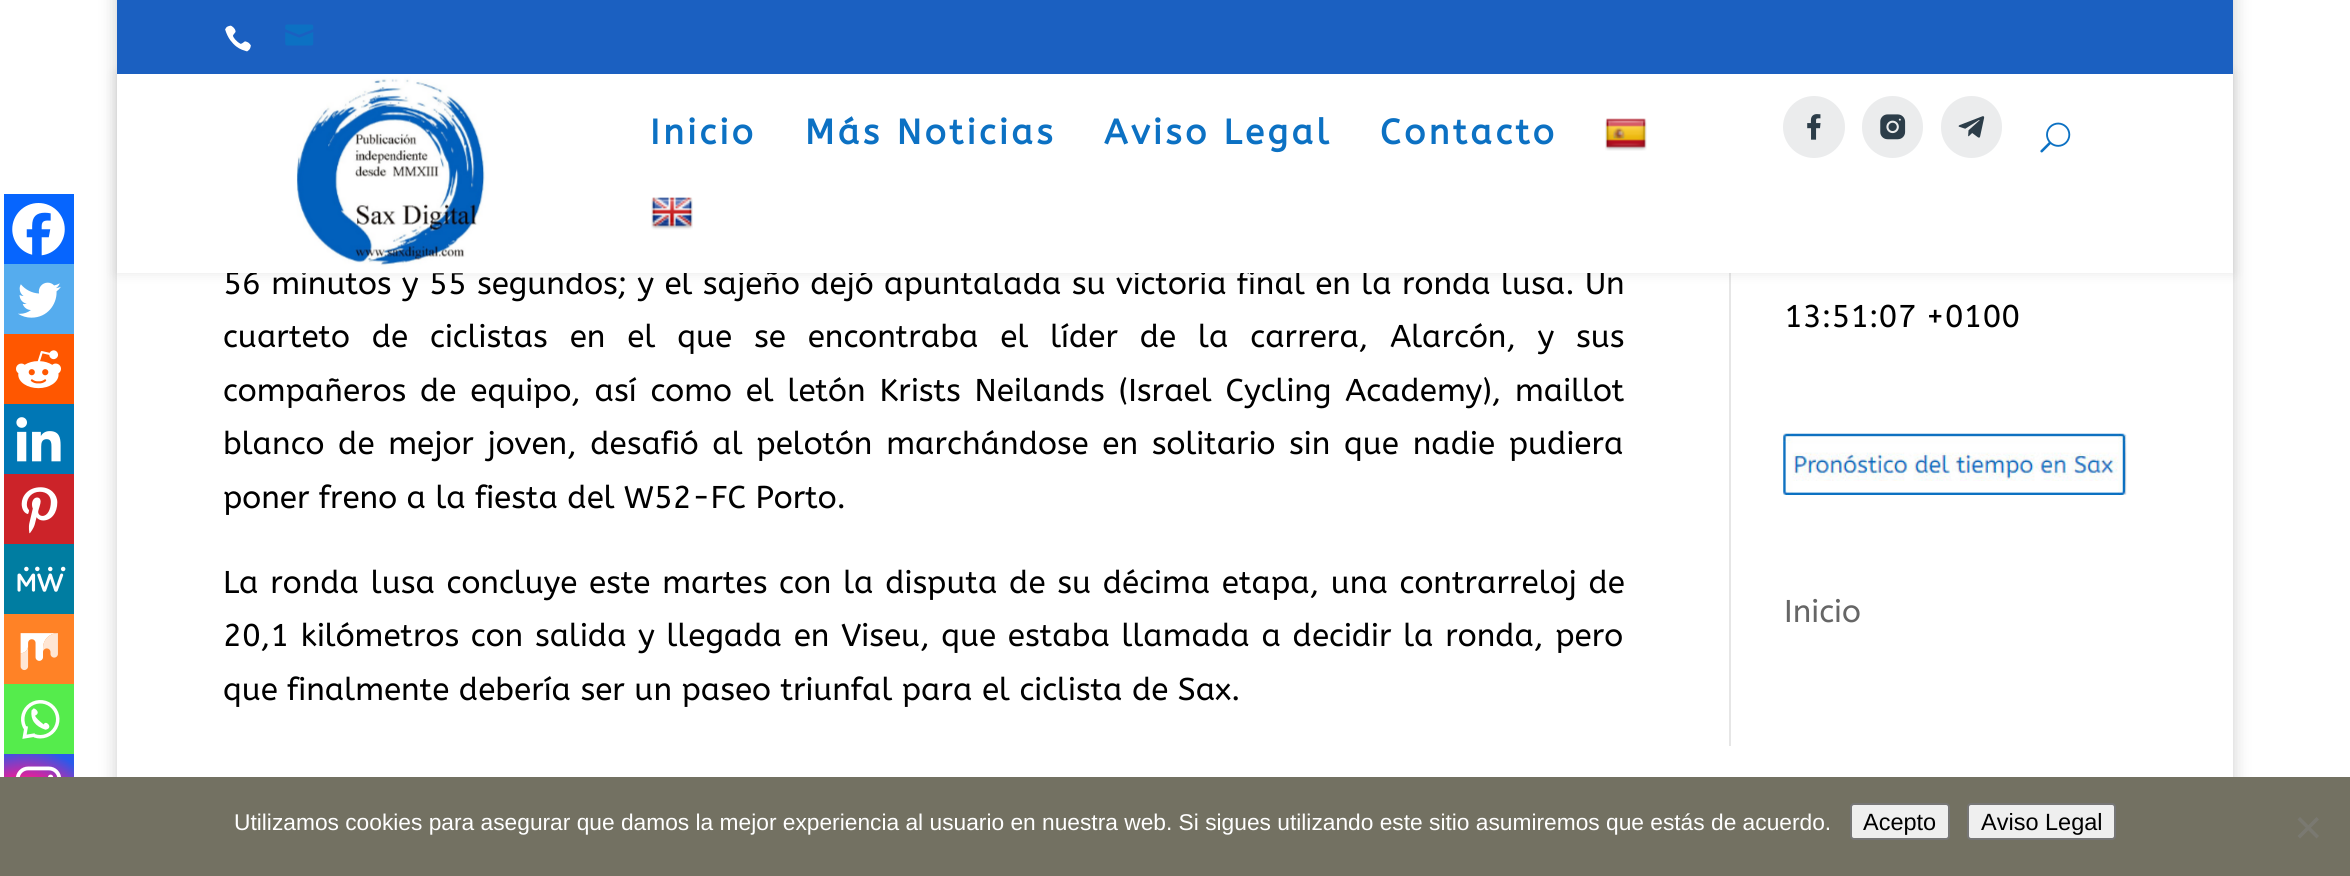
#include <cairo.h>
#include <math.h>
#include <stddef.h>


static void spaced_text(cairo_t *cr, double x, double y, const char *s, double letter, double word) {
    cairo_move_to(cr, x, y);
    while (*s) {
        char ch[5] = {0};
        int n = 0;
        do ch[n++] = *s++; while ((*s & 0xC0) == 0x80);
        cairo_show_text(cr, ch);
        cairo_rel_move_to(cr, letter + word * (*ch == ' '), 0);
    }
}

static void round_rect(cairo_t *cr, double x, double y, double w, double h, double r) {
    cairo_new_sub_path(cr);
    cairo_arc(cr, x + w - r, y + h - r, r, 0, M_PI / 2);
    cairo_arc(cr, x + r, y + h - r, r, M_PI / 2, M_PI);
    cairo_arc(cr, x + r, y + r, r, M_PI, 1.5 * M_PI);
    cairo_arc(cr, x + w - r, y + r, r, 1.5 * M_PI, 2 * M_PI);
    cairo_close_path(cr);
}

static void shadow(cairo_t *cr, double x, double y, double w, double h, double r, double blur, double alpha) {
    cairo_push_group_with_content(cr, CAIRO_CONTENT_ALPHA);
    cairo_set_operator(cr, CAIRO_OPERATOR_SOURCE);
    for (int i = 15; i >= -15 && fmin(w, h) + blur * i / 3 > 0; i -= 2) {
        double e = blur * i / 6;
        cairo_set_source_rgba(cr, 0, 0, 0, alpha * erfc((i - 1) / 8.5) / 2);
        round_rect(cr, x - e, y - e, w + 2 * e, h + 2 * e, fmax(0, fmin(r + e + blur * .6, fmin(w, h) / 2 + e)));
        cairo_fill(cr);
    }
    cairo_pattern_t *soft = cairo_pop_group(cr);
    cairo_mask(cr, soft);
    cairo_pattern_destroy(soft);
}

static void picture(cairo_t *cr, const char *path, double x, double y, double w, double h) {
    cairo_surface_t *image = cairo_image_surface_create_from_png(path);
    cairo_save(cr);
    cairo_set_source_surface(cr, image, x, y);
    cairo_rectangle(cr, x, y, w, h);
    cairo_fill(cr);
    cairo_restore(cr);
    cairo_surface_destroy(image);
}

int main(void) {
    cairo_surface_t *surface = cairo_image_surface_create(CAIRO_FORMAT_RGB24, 2350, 876);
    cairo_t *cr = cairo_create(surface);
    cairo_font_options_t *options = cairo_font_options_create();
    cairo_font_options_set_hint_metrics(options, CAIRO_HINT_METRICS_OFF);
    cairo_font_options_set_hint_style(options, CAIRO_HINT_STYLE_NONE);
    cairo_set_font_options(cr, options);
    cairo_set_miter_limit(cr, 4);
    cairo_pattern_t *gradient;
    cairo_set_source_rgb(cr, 1, 1, 1);
    cairo_paint(cr);
    cairo_set_source_rgb(cr, 0, 0, 0);
    shadow(cr, 117, -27, 2116, 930, 0, 9, 0.2);
    cairo_set_source_rgb(cr, 1, 1, 1);
    cairo_rectangle(cr, 117, 273, 2116, 504);
    cairo_fill(cr);
    cairo_set_source_rgb(cr, 0.902, 0.902, 0.902);
    cairo_rectangle(cr, 1729, 273, 2, 473);
    cairo_fill(cr);
    cairo_set_source_rgb(cr, 0, 0, 0);
    shadow(cr, 117, 74, 2116, 199, 0, 6, 0.1);
    cairo_set_source_rgb(cr, 0.106, 0.376, 0.757);
    cairo_rectangle(cr, 117, 0, 2116, 74);
    cairo_fill(cr);
    picture(cr, "img1.png", 225, 25, 26, 27);
    picture(cr, "img2.png", 285, 24, 29, 22);
    cairo_select_font_face(cr, "ABeeZee", CAIRO_FONT_SLANT_NORMAL, CAIRO_FONT_WEIGHT_NORMAL);
    cairo_set_font_size(cr, 31.5);
    cairo_set_source_rgb(cr, 0, 0, 0);
    spaced_text(cr, 223, 294, "56 minutos y 55 segundos; y el sajeño dejó apuntalada su victoria final en la ronda lusa. Un", 0, 0.9);
    cairo_set_source_rgb(cr, 1, 1, 1);
    cairo_rectangle(cr, 117, 74, 2116, 199);
    cairo_fill(cr);
    picture(cr, "img3.png", 296, 74, 197, 200);
    cairo_select_font_face(cr, "ABeeZee", CAIRO_FONT_SLANT_NORMAL, CAIRO_FONT_WEIGHT_BOLD);
    cairo_set_font_size(cr, 35);
    cairo_set_source_rgb(cr, 0.047, 0.443, 0.765);
    spaced_text(cr, 650, 144, "Inicio", 3.5, 0);
    spaced_text(cr, 805, 144, "Más Noticias", 3.5, 0);
    spaced_text(cr, 1104, 144, "Aviso Legal", 3.5, 0);
    spaced_text(cr, 1380, 144, "Contacto", 3.5, 0);
    picture(cr, "img4.png", 1605, 118, 42, 33);
    picture(cr, "img5.png", 651, 197, 42, 33);
    cairo_set_source_rgb(cr, 0.918, 0.925, 0.929);
    cairo_arc(cr, 1814, 127, 31, 0, 2 * M_PI);
    cairo_fill(cr);
    picture(cr, "img6.png", 1807, 114, 14, 26);
    round_rect(cr, 1862, 96, 61, 62, 30.5);
    cairo_fill(cr);
    picture(cr, "img7.png", 1880, 114, 26, 26);
    round_rect(cr, 1941, 96, 61, 62, 30.5);
    cairo_fill(cr);
    picture(cr, "img8.png", 1958, 116, 27, 22);
    picture(cr, "img9.png", 2040, 122, 31, 31);
    cairo_set_source_rgb(cr, 0.027, 0.396, 0.996);
    cairo_rectangle(cr, 4, 194, 70, 70);
    cairo_fill(cr);
    picture(cr, "img10.png", 12, 203, 53, 53);
    cairo_set_source_rgb(cr, 0.333, 0.675, 0.933);
    cairo_rectangle(cr, 4, 264, 70, 70);
    cairo_fill(cr);
    picture(cr, "img11.png", 18, 282, 43, 36);
    cairo_set_source_rgb(cr, 1, 0.341, 0);
    cairo_rectangle(cr, 4, 334, 70, 70);
    cairo_fill(cr);
    picture(cr, "img12.png", 16, 350, 45, 39);
    cairo_set_source_rgb(cr, 0, 0.467, 0.71);
    cairo_rectangle(cr, 4, 404, 70, 70);
    cairo_fill(cr);
    picture(cr, "img13.png", 16, 417, 45, 45);
    cairo_set_source_rgb(cr, 0.8, 0.137, 0.161);
    cairo_rectangle(cr, 4, 474, 70, 70);
    cairo_fill(cr);
    picture(cr, "img14.png", 21, 487, 37, 47);
    cairo_set_source_rgb(cr, 0, 0.49, 0.631);
    cairo_rectangle(cr, 4, 544, 70, 70);
    cairo_fill(cr);
    picture(cr, "img15.png", 17, 566, 49, 26);
    cairo_set_source_rgb(cr, 1, 0.51, 0.149);
    cairo_rectangle(cr, 4, 614, 70, 70);
    cairo_fill(cr);
    picture(cr, "img16.png", 20, 633, 38, 38);
    cairo_set_source_rgb(cr, 0.333, 0.922, 0.298);
    cairo_rectangle(cr, 4, 684, 70, 70);
    cairo_fill(cr);
    picture(cr, "img17.png", 21, 700, 39, 39);
    gradient = cairo_pattern_create_radial(25, 829, 0, 25, 829, 90);
    cairo_pattern_add_color_stop_rgba(gradient, 0, 0.992, 0.957, 0.592, 1);
    cairo_pattern_add_color_stop_rgba(gradient, 0.05, 0.992, 0.957, 0.592, 1);
    cairo_pattern_add_color_stop_rgba(gradient, 0.45, 0.992, 0.349, 0.286, 1);
    cairo_pattern_add_color_stop_rgba(gradient, 0.6, 0.839, 0.141, 0.624, 1);
    cairo_pattern_add_color_stop_rgba(gradient, 0.9, 0.157, 0.353, 0.922, 1);
    cairo_set_source(cr, gradient);
    cairo_pattern_destroy(gradient);
    cairo_rectangle(cr, 4, 754, 70, 23);
    cairo_fill(cr);
    picture(cr, "img18.png", 16, 766, 45, 11);
    cairo_select_font_face(cr, "ABeeZee", CAIRO_FONT_SLANT_NORMAL, CAIRO_FONT_WEIGHT_NORMAL);
    cairo_set_font_size(cr, 31.5);
    cairo_set_source_rgb(cr, 0, 0, 0);
    spaced_text(cr, 223, 347, "cuarteto de ciclistas en el que se encontraba el líder de la carrera, Alarcón, y sus", 0, 12.4);
    spaced_text(cr, 223, 401, "compañeros de equipo, así como el letón Krists Neilands (Israel Cycling Academy), maillot", 0, 4.4);
    spaced_text(cr, 223, 454, "blanco de mejor joven, desafió al pelotón marchándose en solitario sin que nadie pudiera", 0, 4.25);
    cairo_move_to(cr, 223, 508);
    cairo_show_text(cr, "poner freno a la fiesta del W52-FC Porto.");
    spaced_text(cr, 223, 593, "La ronda lusa concluye este martes con la disputa de su décima etapa, una contrarreloj de", 0, 2.25);
    spaced_text(cr, 223, 646, "20,1 kilómetros con salida y llegada en Viseu, que estaba llamada a decidir la ronda, pero", 0, 2.25);
    cairo_move_to(cr, 223, 700);
    cairo_show_text(cr, "que finalmente debería ser un paseo triunfal para el ciclista de Sax.");
    cairo_move_to(cr, 1784, 327);
    cairo_show_text(cr, "13:51:07 +0100");
    picture(cr, "img19.png", 1783, 433, 344, 62);
    cairo_set_source_rgb(cr, 0.4, 0.4, 0.4);
    cairo_move_to(cr, 1784, 622);
    cairo_show_text(cr, "Inicio");
    cairo_set_source_rgb(cr, 0.451, 0.443, 0.384);
    cairo_rectangle(cr, 0, 777, 2350, 99);
    cairo_fill(cr);
    cairo_select_font_face(cr, "Liberation Sans", CAIRO_FONT_SLANT_NORMAL, CAIRO_FONT_WEIGHT_NORMAL);
    cairo_set_font_size(cr, 22.75);
    cairo_set_source_rgb(cr, 1, 1, 1);
    cairo_move_to(cr, 234, 830);
    cairo_show_text(cr, "Utilizamos cookies para asegurar que damos la mejor experiencia al usuario en nuestra web. Si sigues utilizando este sitio asumiremos que estás de acuerdo.");
    cairo_set_source_rgb(cr, 0.937, 0.937, 0.937);
    round_rect(cr, 1851, 804, 98, 35, 3);
    cairo_fill_preserve(cr);
    cairo_set_source_rgb(cr, 0.463, 0.463, 0.463);
    cairo_stroke(cr);
    cairo_set_font_size(cr, 23.5);
    cairo_set_source_rgb(cr, 0, 0, 0);
    cairo_move_to(cr, 1863, 830);
    cairo_show_text(cr, "Acepto");
    cairo_set_source_rgb(cr, 0.937, 0.937, 0.937);
    round_rect(cr, 1968, 804, 147, 35, 3);
    cairo_fill_preserve(cr);
    cairo_set_source_rgb(cr, 0.463, 0.463, 0.463);
    cairo_stroke(cr);
    cairo_set_source_rgb(cr, 0, 0, 0);
    cairo_move_to(cr, 1981, 830);
    cairo_show_text(cr, "Aviso Legal");
    cairo_set_source_rgb(cr, 0.478, 0.475, 0.443);
    cairo_new_path(cr);
    cairo_move_to(cr, 2316.5, 817);
    cairo_line_to(cr, 2319, 819.5);
    cairo_line_to(cr, 2300, 838.5);
    cairo_line_to(cr, 2297.5, 836);
    cairo_close_path(cr);
    cairo_fill(cr);
    cairo_new_path(cr);
    cairo_move_to(cr, 2297.5, 819.5);
    cairo_line_to(cr, 2300, 817);
    cairo_line_to(cr, 2319, 836);
    cairo_line_to(cr, 2316.5, 838.5);
    cairo_close_path(cr);
    cairo_fill(cr);
    cairo_surface_write_to_png(surface, "page.png");
    cairo_font_options_destroy(options);
    cairo_destroy(cr);
    cairo_surface_destroy(surface);
    return 0;
}
